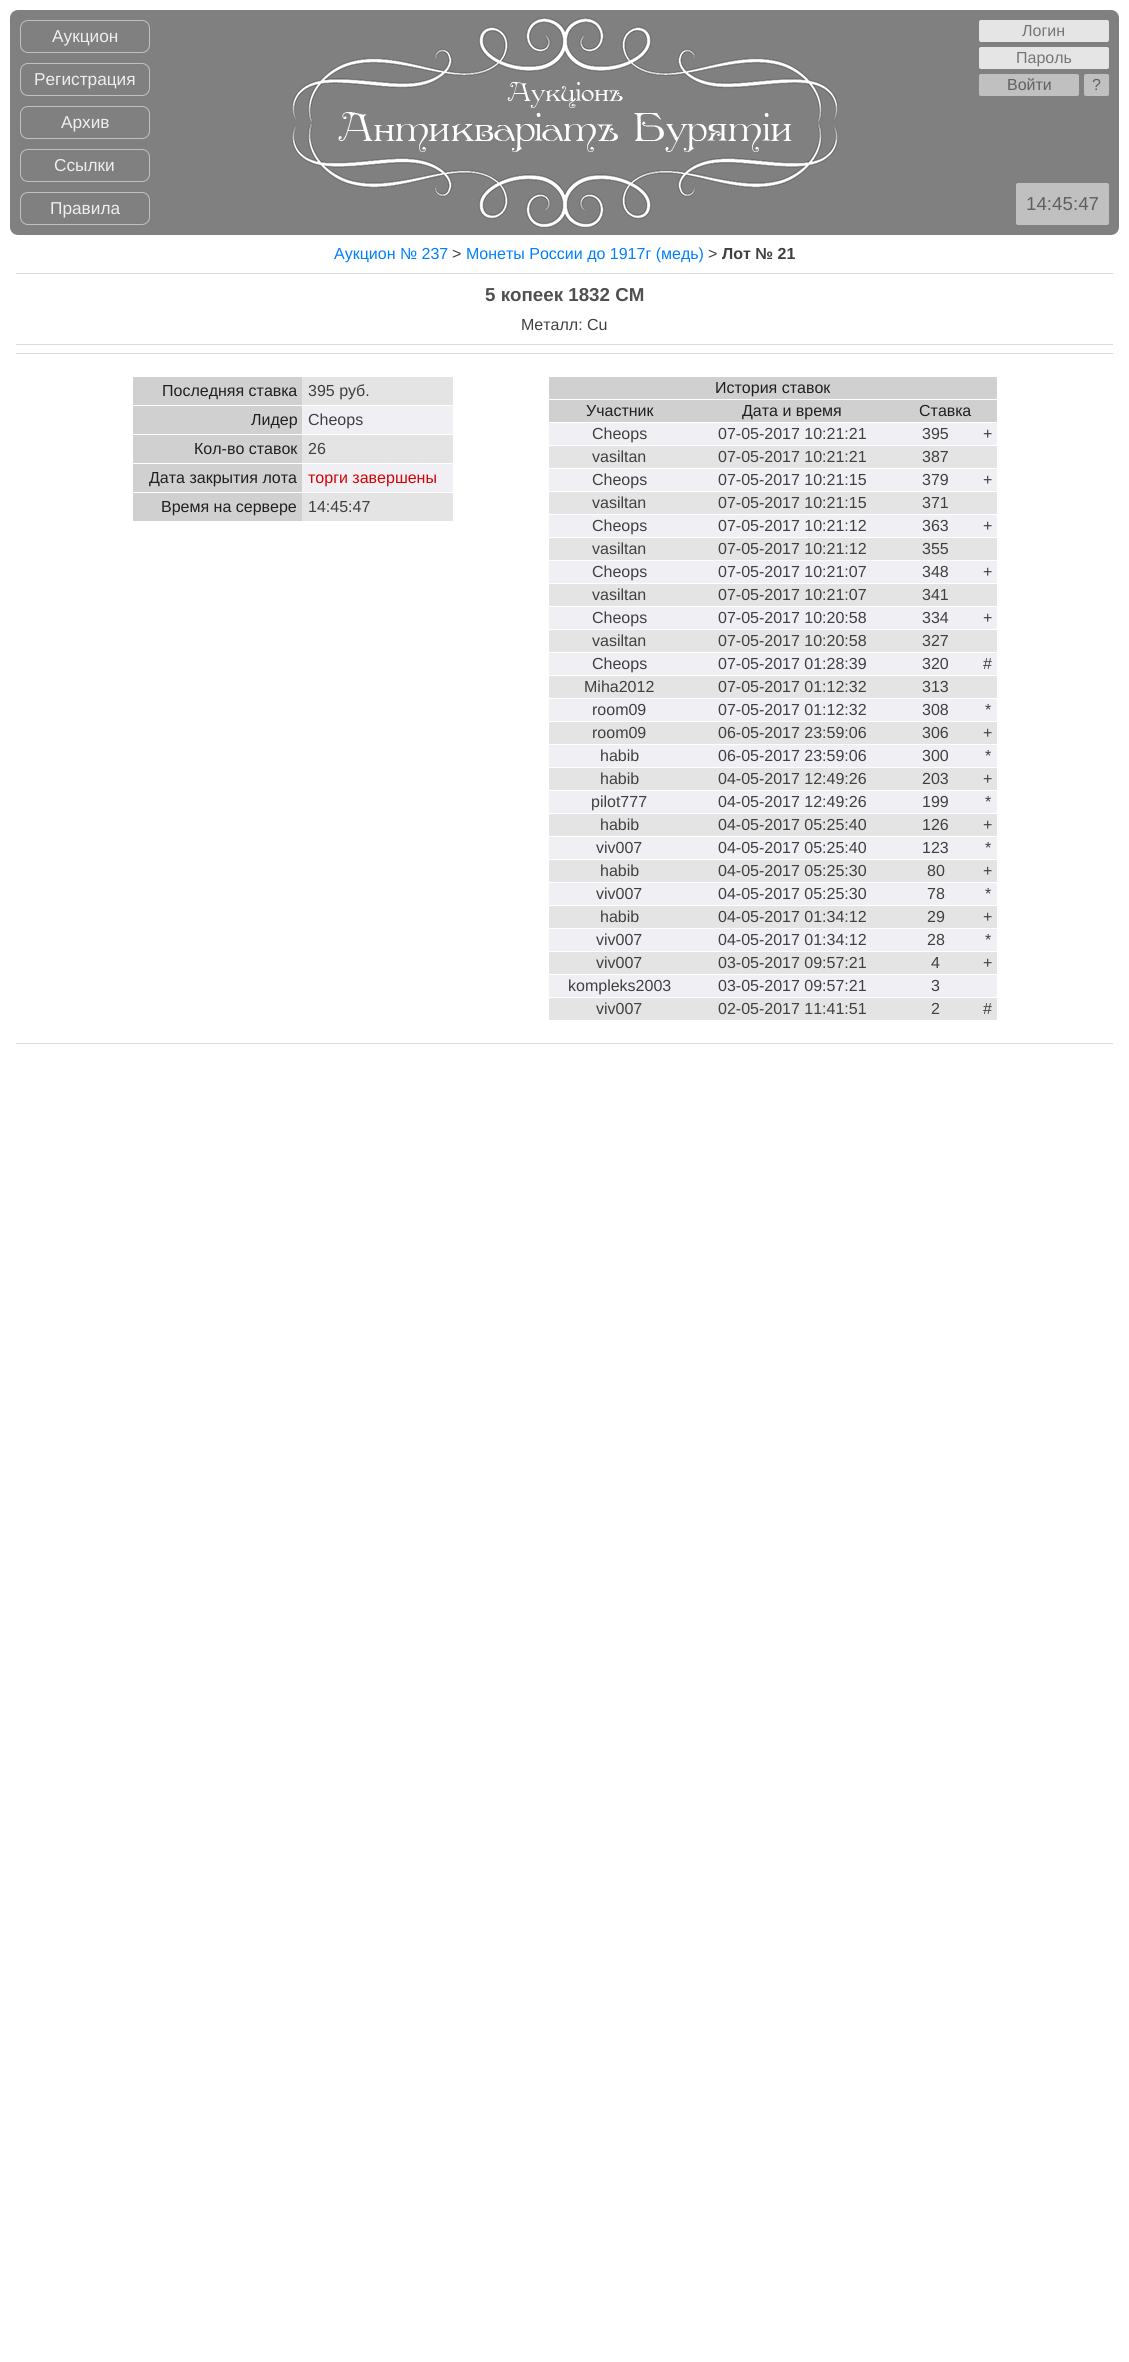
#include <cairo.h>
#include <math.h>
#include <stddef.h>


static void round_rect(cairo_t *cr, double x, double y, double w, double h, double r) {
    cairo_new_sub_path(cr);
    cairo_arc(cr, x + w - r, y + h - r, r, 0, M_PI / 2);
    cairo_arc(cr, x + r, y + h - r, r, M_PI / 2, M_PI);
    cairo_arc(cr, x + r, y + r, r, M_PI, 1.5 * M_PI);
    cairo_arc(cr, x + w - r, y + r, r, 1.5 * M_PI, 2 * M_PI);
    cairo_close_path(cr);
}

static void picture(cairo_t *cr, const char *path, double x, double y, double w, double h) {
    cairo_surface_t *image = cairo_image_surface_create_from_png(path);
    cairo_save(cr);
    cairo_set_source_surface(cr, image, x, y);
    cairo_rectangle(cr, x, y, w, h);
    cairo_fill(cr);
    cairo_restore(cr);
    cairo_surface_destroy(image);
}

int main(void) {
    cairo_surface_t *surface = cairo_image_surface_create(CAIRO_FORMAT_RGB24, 1129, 2362);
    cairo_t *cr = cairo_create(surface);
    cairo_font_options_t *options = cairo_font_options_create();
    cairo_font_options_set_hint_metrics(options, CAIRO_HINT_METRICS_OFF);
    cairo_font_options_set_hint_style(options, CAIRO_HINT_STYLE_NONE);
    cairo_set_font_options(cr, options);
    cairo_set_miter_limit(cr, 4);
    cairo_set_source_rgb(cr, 1, 1, 1);
    cairo_paint(cr);
    cairo_set_source_rgb(cr, 0.502, 0.502, 0.502);
    round_rect(cr, 10, 10, 1109, 225, 8);
    cairo_fill(cr);
    round_rect(cr, 20.5, 20.5, 129, 32, 7.5);
    cairo_set_source_rgb(cr, 0.753, 0.753, 0.753);
    cairo_set_line_width(cr, 1);
    cairo_stroke(cr);
    cairo_select_font_face(cr, "Liberation Sans", CAIRO_FONT_SLANT_NORMAL, CAIRO_FONT_WEIGHT_NORMAL);
    cairo_set_font_size(cr, 17.25);
    cairo_set_source_rgb(cr, 0.933, 0.933, 0.933);
    cairo_move_to(cr, 52, 42);
    cairo_show_text(cr, "Аукцион");
    round_rect(cr, 20.5, 63.5, 129, 32, 7.5);
    cairo_set_source_rgb(cr, 0.753, 0.753, 0.753);
    cairo_stroke(cr);
    cairo_set_source_rgb(cr, 0.933, 0.933, 0.933);
    cairo_move_to(cr, 34, 85);
    cairo_show_text(cr, "Регистрация");
    round_rect(cr, 20.5, 106.5, 129, 32, 7.5);
    cairo_set_source_rgb(cr, 0.753, 0.753, 0.753);
    cairo_stroke(cr);
    cairo_set_source_rgb(cr, 0.933, 0.933, 0.933);
    cairo_move_to(cr, 61, 128);
    cairo_show_text(cr, "Архив");
    round_rect(cr, 20.5, 149.5, 129, 32, 7.5);
    cairo_set_source_rgb(cr, 0.753, 0.753, 0.753);
    cairo_stroke(cr);
    cairo_set_source_rgb(cr, 0.933, 0.933, 0.933);
    cairo_move_to(cr, 54, 171);
    cairo_show_text(cr, "Ссылки");
    round_rect(cr, 20.5, 192.5, 129, 32, 7.5);
    cairo_set_source_rgb(cr, 0.753, 0.753, 0.753);
    cairo_stroke(cr);
    cairo_set_source_rgb(cr, 0.933, 0.933, 0.933);
    cairo_move_to(cr, 50, 214);
    cairo_show_text(cr, "Правила");
    picture(cr, "img1.png", 291, 17, 547, 211);
    cairo_set_source_rgb(cr, 0.898, 0.898, 0.898);
    round_rect(cr, 979, 20, 130, 22, 2);
    cairo_fill(cr);
    cairo_set_font_size(cr, 16);
    cairo_set_source_rgb(cr, 0.459, 0.459, 0.459);
    cairo_move_to(cr, 1022, 36);
    cairo_show_text(cr, "Логин");
    cairo_set_source_rgb(cr, 0.898, 0.898, 0.898);
    round_rect(cr, 979, 47, 130, 22, 2);
    cairo_fill(cr);
    cairo_set_source_rgb(cr, 0.459, 0.459, 0.459);
    cairo_move_to(cr, 1016, 63);
    cairo_show_text(cr, "Пароль");
    cairo_set_source_rgb(cr, 0.753, 0.753, 0.753);
    round_rect(cr, 979, 74, 100, 22, 2);
    cairo_fill(cr);
    cairo_set_source_rgb(cr, 0.376, 0.376, 0.376);
    cairo_move_to(cr, 1007, 90);
    cairo_show_text(cr, "Войти");
    cairo_set_source_rgb(cr, 0.753, 0.753, 0.753);
    round_rect(cr, 1084, 74, 25, 22, 2);
    cairo_fill(cr);
    cairo_set_source_rgb(cr, 0.376, 0.376, 0.376);
    cairo_move_to(cr, 1092, 90);
    cairo_show_text(cr, "?");
    cairo_set_source_rgb(cr, 0.753, 0.753, 0.753);
    round_rect(cr, 1016, 183, 93, 42, 2);
    cairo_fill(cr);
    cairo_set_font_size(cr, 18.75);
    cairo_set_source_rgb(cr, 0.376, 0.376, 0.376);
    cairo_move_to(cr, 1026, 210);
    cairo_show_text(cr, "14:45:47");
    cairo_set_font_size(cr, 16);
    cairo_set_source_rgb(cr, 0, 0.502, 1);
    cairo_move_to(cr, 334, 259);
    cairo_show_text(cr, "Аукцион № 237");
    cairo_set_source_rgb(cr, 0.251, 0.251, 0.251);
    cairo_move_to(cr, 452, 259);
    cairo_show_text(cr, ">");
    cairo_set_source_rgb(cr, 0, 0.502, 1);
    cairo_move_to(cr, 466, 259);
    cairo_show_text(cr, "Монеты России до 1917г (медь)");
    cairo_set_source_rgb(cr, 0.251, 0.251, 0.251);
    cairo_move_to(cr, 708, 259);
    cairo_show_text(cr, ">");
    cairo_select_font_face(cr, "Liberation Sans", CAIRO_FONT_SLANT_NORMAL, CAIRO_FONT_WEIGHT_BOLD);
    cairo_move_to(cr, 722, 259);
    cairo_show_text(cr, "Лот № 21");
    cairo_set_source_rgb(cr, 0.859, 0.859, 0.859);
    cairo_rectangle(cr, 16, 273, 1097, 1);
    cairo_fill(cr);
    cairo_set_font_size(cr, 18.75);
    cairo_set_source_rgb(cr, 0.314, 0.314, 0.314);
    cairo_move_to(cr, 485, 301);
    cairo_show_text(cr, "5 копеек 1832 СМ");
    cairo_select_font_face(cr, "Liberation Sans", CAIRO_FONT_SLANT_NORMAL, CAIRO_FONT_WEIGHT_NORMAL);
    cairo_set_font_size(cr, 16);
    cairo_set_source_rgb(cr, 0.251, 0.251, 0.251);
    cairo_move_to(cr, 521, 330);
    cairo_show_text(cr, "Металл: Cu");
    cairo_set_source_rgb(cr, 0.859, 0.859, 0.859);
    cairo_rectangle(cr, 16, 344, 1097, 1);
    cairo_fill(cr);
    cairo_rectangle(cr, 16, 353, 1097, 1);
    cairo_fill(cr);
    cairo_set_source_rgb(cr, 0.894, 0.894, 0.894);
    cairo_rectangle(cr, 302, 377, 151, 28);
    cairo_fill(cr);
    cairo_set_source_rgb(cr, 0.816, 0.816, 0.816);
    cairo_rectangle(cr, 133, 377, 169, 28);
    cairo_fill(cr);
    cairo_set_source_rgb(cr, 0.125, 0.125, 0.125);
    cairo_move_to(cr, 162, 396);
    cairo_show_text(cr, "Последняя ставка");
    cairo_set_source_rgb(cr, 0.251, 0.251, 0.251);
    cairo_move_to(cr, 308, 396);
    cairo_show_text(cr, "395 руб.");
    cairo_set_source_rgb(cr, 0.941, 0.937, 0.957);
    cairo_rectangle(cr, 302, 406, 151, 28);
    cairo_fill(cr);
    cairo_set_source_rgb(cr, 0.816, 0.816, 0.816);
    cairo_rectangle(cr, 133, 406, 169, 28);
    cairo_fill(cr);
    cairo_set_source_rgb(cr, 0.125, 0.125, 0.125);
    cairo_move_to(cr, 251, 425);
    cairo_show_text(cr, "Лидер");
    cairo_set_source_rgb(cr, 0.251, 0.251, 0.251);
    cairo_move_to(cr, 308, 425);
    cairo_show_text(cr, "Cheops");
    cairo_set_source_rgb(cr, 0.894, 0.894, 0.894);
    cairo_rectangle(cr, 302, 435, 151, 28);
    cairo_fill(cr);
    cairo_set_source_rgb(cr, 0.816, 0.816, 0.816);
    cairo_rectangle(cr, 133, 435, 169, 28);
    cairo_fill(cr);
    cairo_set_source_rgb(cr, 0.125, 0.125, 0.125);
    cairo_move_to(cr, 194, 454);
    cairo_show_text(cr, "Кол-во ставок");
    cairo_set_source_rgb(cr, 0.251, 0.251, 0.251);
    cairo_move_to(cr, 308, 454);
    cairo_show_text(cr, "26");
    cairo_set_source_rgb(cr, 0.941, 0.937, 0.957);
    cairo_rectangle(cr, 302, 464, 151, 28);
    cairo_fill(cr);
    cairo_set_source_rgb(cr, 0.816, 0.816, 0.816);
    cairo_rectangle(cr, 133, 464, 169, 28);
    cairo_fill(cr);
    cairo_set_source_rgb(cr, 0.125, 0.125, 0.125);
    cairo_move_to(cr, 149, 483);
    cairo_show_text(cr, "Дата закрытия лота");
    cairo_set_source_rgb(cr, 0.827, 0.008, 0.012);
    cairo_move_to(cr, 308, 483);
    cairo_show_text(cr, "торги завершены");
    cairo_set_source_rgb(cr, 0.894, 0.894, 0.894);
    cairo_rectangle(cr, 302, 493, 151, 28);
    cairo_fill(cr);
    cairo_set_source_rgb(cr, 0.816, 0.816, 0.816);
    cairo_rectangle(cr, 133, 493, 169, 28);
    cairo_fill(cr);
    cairo_set_source_rgb(cr, 0.125, 0.125, 0.125);
    cairo_move_to(cr, 161, 512);
    cairo_show_text(cr, "Время на сервере");
    cairo_set_source_rgb(cr, 0.251, 0.251, 0.251);
    cairo_move_to(cr, 308, 512);
    cairo_show_text(cr, "14:45:47");
    cairo_set_source_rgb(cr, 0.816, 0.816, 0.816);
    cairo_rectangle(cr, 549, 377, 448, 22);
    cairo_fill(cr);
    cairo_set_source_rgb(cr, 0.125, 0.125, 0.125);
    cairo_move_to(cr, 715, 393);
    cairo_show_text(cr, "История ставок");
    cairo_set_source_rgb(cr, 0.816, 0.816, 0.816);
    cairo_rectangle(cr, 549, 400, 448, 22);
    cairo_fill(cr);
    cairo_set_source_rgb(cr, 0.125, 0.125, 0.125);
    cairo_move_to(cr, 586, 416);
    cairo_show_text(cr, "Участник");
    cairo_move_to(cr, 742, 416);
    cairo_show_text(cr, "Дата и время");
    cairo_move_to(cr, 919, 416);
    cairo_show_text(cr, "Ставка");
    cairo_set_source_rgb(cr, 0.941, 0.937, 0.957);
    cairo_rectangle(cr, 549, 423, 448, 22);
    cairo_fill(cr);
    cairo_set_source_rgb(cr, 0.251, 0.251, 0.251);
    cairo_move_to(cr, 592, 439);
    cairo_show_text(cr, "Cheops");
    cairo_move_to(cr, 718, 439);
    cairo_show_text(cr, "07-05-2017 10:21:21");
    cairo_move_to(cr, 922, 439);
    cairo_show_text(cr, "395");
    cairo_move_to(cr, 983, 439);
    cairo_show_text(cr, "+");
    cairo_set_source_rgb(cr, 0.894, 0.894, 0.894);
    cairo_rectangle(cr, 549, 446, 448, 22);
    cairo_fill(cr);
    cairo_set_source_rgb(cr, 0.251, 0.251, 0.251);
    cairo_move_to(cr, 592, 462);
    cairo_show_text(cr, "vasiltan");
    cairo_move_to(cr, 718, 462);
    cairo_show_text(cr, "07-05-2017 10:21:21");
    cairo_move_to(cr, 922, 462);
    cairo_show_text(cr, "387");
    cairo_set_source_rgb(cr, 0.941, 0.937, 0.957);
    cairo_rectangle(cr, 549, 469, 448, 22);
    cairo_fill(cr);
    cairo_set_source_rgb(cr, 0.251, 0.251, 0.251);
    cairo_move_to(cr, 592, 485);
    cairo_show_text(cr, "Cheops");
    cairo_move_to(cr, 718, 485);
    cairo_show_text(cr, "07-05-2017 10:21:15");
    cairo_move_to(cr, 922, 485);
    cairo_show_text(cr, "379");
    cairo_move_to(cr, 983, 485);
    cairo_show_text(cr, "+");
    cairo_set_source_rgb(cr, 0.894, 0.894, 0.894);
    cairo_rectangle(cr, 549, 492, 448, 22);
    cairo_fill(cr);
    cairo_set_source_rgb(cr, 0.251, 0.251, 0.251);
    cairo_move_to(cr, 592, 508);
    cairo_show_text(cr, "vasiltan");
    cairo_move_to(cr, 718, 508);
    cairo_show_text(cr, "07-05-2017 10:21:15");
    cairo_move_to(cr, 922, 508);
    cairo_show_text(cr, "371");
    cairo_set_source_rgb(cr, 0.941, 0.937, 0.957);
    cairo_rectangle(cr, 549, 515, 448, 22);
    cairo_fill(cr);
    cairo_set_source_rgb(cr, 0.251, 0.251, 0.251);
    cairo_move_to(cr, 592, 531);
    cairo_show_text(cr, "Cheops");
    cairo_move_to(cr, 718, 531);
    cairo_show_text(cr, "07-05-2017 10:21:12");
    cairo_move_to(cr, 922, 531);
    cairo_show_text(cr, "363");
    cairo_move_to(cr, 983, 531);
    cairo_show_text(cr, "+");
    cairo_set_source_rgb(cr, 0.894, 0.894, 0.894);
    cairo_rectangle(cr, 549, 538, 448, 22);
    cairo_fill(cr);
    cairo_set_source_rgb(cr, 0.251, 0.251, 0.251);
    cairo_move_to(cr, 592, 554);
    cairo_show_text(cr, "vasiltan");
    cairo_move_to(cr, 718, 554);
    cairo_show_text(cr, "07-05-2017 10:21:12");
    cairo_move_to(cr, 922, 554);
    cairo_show_text(cr, "355");
    cairo_set_source_rgb(cr, 0.941, 0.937, 0.957);
    cairo_rectangle(cr, 549, 561, 448, 22);
    cairo_fill(cr);
    cairo_set_source_rgb(cr, 0.251, 0.251, 0.251);
    cairo_move_to(cr, 592, 577);
    cairo_show_text(cr, "Cheops");
    cairo_move_to(cr, 718, 577);
    cairo_show_text(cr, "07-05-2017 10:21:07");
    cairo_move_to(cr, 922, 577);
    cairo_show_text(cr, "348");
    cairo_move_to(cr, 983, 577);
    cairo_show_text(cr, "+");
    cairo_set_source_rgb(cr, 0.894, 0.894, 0.894);
    cairo_rectangle(cr, 549, 584, 448, 22);
    cairo_fill(cr);
    cairo_set_source_rgb(cr, 0.251, 0.251, 0.251);
    cairo_move_to(cr, 592, 600);
    cairo_show_text(cr, "vasiltan");
    cairo_move_to(cr, 718, 600);
    cairo_show_text(cr, "07-05-2017 10:21:07");
    cairo_move_to(cr, 922, 600);
    cairo_show_text(cr, "341");
    cairo_set_source_rgb(cr, 0.941, 0.937, 0.957);
    cairo_rectangle(cr, 549, 607, 448, 22);
    cairo_fill(cr);
    cairo_set_source_rgb(cr, 0.251, 0.251, 0.251);
    cairo_move_to(cr, 592, 623);
    cairo_show_text(cr, "Cheops");
    cairo_move_to(cr, 718, 623);
    cairo_show_text(cr, "07-05-2017 10:20:58");
    cairo_move_to(cr, 922, 623);
    cairo_show_text(cr, "334");
    cairo_move_to(cr, 983, 623);
    cairo_show_text(cr, "+");
    cairo_set_source_rgb(cr, 0.894, 0.894, 0.894);
    cairo_rectangle(cr, 549, 630, 448, 22);
    cairo_fill(cr);
    cairo_set_source_rgb(cr, 0.251, 0.251, 0.251);
    cairo_move_to(cr, 592, 646);
    cairo_show_text(cr, "vasiltan");
    cairo_move_to(cr, 718, 646);
    cairo_show_text(cr, "07-05-2017 10:20:58");
    cairo_move_to(cr, 922, 646);
    cairo_show_text(cr, "327");
    cairo_set_source_rgb(cr, 0.941, 0.937, 0.957);
    cairo_rectangle(cr, 549, 653, 448, 22);
    cairo_fill(cr);
    cairo_set_source_rgb(cr, 0.251, 0.251, 0.251);
    cairo_move_to(cr, 592, 669);
    cairo_show_text(cr, "Cheops");
    cairo_move_to(cr, 718, 669);
    cairo_show_text(cr, "07-05-2017 01:28:39");
    cairo_move_to(cr, 922, 669);
    cairo_show_text(cr, "320");
    cairo_move_to(cr, 983, 669);
    cairo_show_text(cr, "#");
    cairo_set_source_rgb(cr, 0.894, 0.894, 0.894);
    cairo_rectangle(cr, 549, 676, 448, 22);
    cairo_fill(cr);
    cairo_set_source_rgb(cr, 0.251, 0.251, 0.251);
    cairo_move_to(cr, 584, 692);
    cairo_show_text(cr, "Miha2012");
    cairo_move_to(cr, 718, 692);
    cairo_show_text(cr, "07-05-2017 01:12:32");
    cairo_move_to(cr, 922, 692);
    cairo_show_text(cr, "313");
    cairo_set_source_rgb(cr, 0.941, 0.937, 0.957);
    cairo_rectangle(cr, 549, 699, 448, 22);
    cairo_fill(cr);
    cairo_set_source_rgb(cr, 0.251, 0.251, 0.251);
    cairo_move_to(cr, 592, 715);
    cairo_show_text(cr, "room09");
    cairo_move_to(cr, 718, 715);
    cairo_show_text(cr, "07-05-2017 01:12:32");
    cairo_move_to(cr, 922, 715);
    cairo_show_text(cr, "308");
    cairo_move_to(cr, 985, 715);
    cairo_show_text(cr, "*");
    cairo_set_source_rgb(cr, 0.894, 0.894, 0.894);
    cairo_rectangle(cr, 549, 722, 448, 22);
    cairo_fill(cr);
    cairo_set_source_rgb(cr, 0.251, 0.251, 0.251);
    cairo_move_to(cr, 592, 738);
    cairo_show_text(cr, "room09");
    cairo_move_to(cr, 718, 738);
    cairo_show_text(cr, "06-05-2017 23:59:06");
    cairo_move_to(cr, 922, 738);
    cairo_show_text(cr, "306");
    cairo_move_to(cr, 983, 738);
    cairo_show_text(cr, "+");
    cairo_set_source_rgb(cr, 0.941, 0.937, 0.957);
    cairo_rectangle(cr, 549, 745, 448, 22);
    cairo_fill(cr);
    cairo_set_source_rgb(cr, 0.251, 0.251, 0.251);
    cairo_move_to(cr, 600, 761);
    cairo_show_text(cr, "habib");
    cairo_move_to(cr, 718, 761);
    cairo_show_text(cr, "06-05-2017 23:59:06");
    cairo_move_to(cr, 922, 761);
    cairo_show_text(cr, "300");
    cairo_move_to(cr, 985, 761);
    cairo_show_text(cr, "*");
    cairo_set_source_rgb(cr, 0.894, 0.894, 0.894);
    cairo_rectangle(cr, 549, 768, 448, 22);
    cairo_fill(cr);
    cairo_set_source_rgb(cr, 0.251, 0.251, 0.251);
    cairo_move_to(cr, 600, 784);
    cairo_show_text(cr, "habib");
    cairo_move_to(cr, 718, 784);
    cairo_show_text(cr, "04-05-2017 12:49:26");
    cairo_move_to(cr, 922, 784);
    cairo_show_text(cr, "203");
    cairo_move_to(cr, 983, 784);
    cairo_show_text(cr, "+");
    cairo_set_source_rgb(cr, 0.941, 0.937, 0.957);
    cairo_rectangle(cr, 549, 791, 448, 22);
    cairo_fill(cr);
    cairo_set_source_rgb(cr, 0.251, 0.251, 0.251);
    cairo_move_to(cr, 591, 807);
    cairo_show_text(cr, "pilot777");
    cairo_move_to(cr, 718, 807);
    cairo_show_text(cr, "04-05-2017 12:49:26");
    cairo_move_to(cr, 922, 807);
    cairo_show_text(cr, "199");
    cairo_move_to(cr, 985, 807);
    cairo_show_text(cr, "*");
    cairo_set_source_rgb(cr, 0.894, 0.894, 0.894);
    cairo_rectangle(cr, 549, 814, 448, 22);
    cairo_fill(cr);
    cairo_set_source_rgb(cr, 0.251, 0.251, 0.251);
    cairo_move_to(cr, 600, 830);
    cairo_show_text(cr, "habib");
    cairo_move_to(cr, 718, 830);
    cairo_show_text(cr, "04-05-2017 05:25:40");
    cairo_move_to(cr, 922, 830);
    cairo_show_text(cr, "126");
    cairo_move_to(cr, 983, 830);
    cairo_show_text(cr, "+");
    cairo_set_source_rgb(cr, 0.941, 0.937, 0.957);
    cairo_rectangle(cr, 549, 837, 448, 22);
    cairo_fill(cr);
    cairo_set_source_rgb(cr, 0.251, 0.251, 0.251);
    cairo_move_to(cr, 596, 853);
    cairo_show_text(cr, "viv007");
    cairo_move_to(cr, 718, 853);
    cairo_show_text(cr, "04-05-2017 05:25:40");
    cairo_move_to(cr, 922, 853);
    cairo_show_text(cr, "123");
    cairo_move_to(cr, 985, 853);
    cairo_show_text(cr, "*");
    cairo_set_source_rgb(cr, 0.894, 0.894, 0.894);
    cairo_rectangle(cr, 549, 860, 448, 22);
    cairo_fill(cr);
    cairo_set_source_rgb(cr, 0.251, 0.251, 0.251);
    cairo_move_to(cr, 600, 876);
    cairo_show_text(cr, "habib");
    cairo_move_to(cr, 718, 876);
    cairo_show_text(cr, "04-05-2017 05:25:30");
    cairo_move_to(cr, 927, 876);
    cairo_show_text(cr, "80");
    cairo_move_to(cr, 983, 876);
    cairo_show_text(cr, "+");
    cairo_set_source_rgb(cr, 0.941, 0.937, 0.957);
    cairo_rectangle(cr, 549, 883, 448, 22);
    cairo_fill(cr);
    cairo_set_source_rgb(cr, 0.251, 0.251, 0.251);
    cairo_move_to(cr, 596, 899);
    cairo_show_text(cr, "viv007");
    cairo_move_to(cr, 718, 899);
    cairo_show_text(cr, "04-05-2017 05:25:30");
    cairo_move_to(cr, 927, 899);
    cairo_show_text(cr, "78");
    cairo_move_to(cr, 985, 899);
    cairo_show_text(cr, "*");
    cairo_set_source_rgb(cr, 0.894, 0.894, 0.894);
    cairo_rectangle(cr, 549, 906, 448, 22);
    cairo_fill(cr);
    cairo_set_source_rgb(cr, 0.251, 0.251, 0.251);
    cairo_move_to(cr, 600, 922);
    cairo_show_text(cr, "habib");
    cairo_move_to(cr, 718, 922);
    cairo_show_text(cr, "04-05-2017 01:34:12");
    cairo_move_to(cr, 927, 922);
    cairo_show_text(cr, "29");
    cairo_move_to(cr, 983, 922);
    cairo_show_text(cr, "+");
    cairo_set_source_rgb(cr, 0.941, 0.937, 0.957);
    cairo_rectangle(cr, 549, 929, 448, 22);
    cairo_fill(cr);
    cairo_set_source_rgb(cr, 0.251, 0.251, 0.251);
    cairo_move_to(cr, 596, 945);
    cairo_show_text(cr, "viv007");
    cairo_move_to(cr, 718, 945);
    cairo_show_text(cr, "04-05-2017 01:34:12");
    cairo_move_to(cr, 927, 945);
    cairo_show_text(cr, "28");
    cairo_move_to(cr, 985, 945);
    cairo_show_text(cr, "*");
    cairo_set_source_rgb(cr, 0.894, 0.894, 0.894);
    cairo_rectangle(cr, 549, 952, 448, 22);
    cairo_fill(cr);
    cairo_set_source_rgb(cr, 0.251, 0.251, 0.251);
    cairo_move_to(cr, 596, 968);
    cairo_show_text(cr, "viv007");
    cairo_move_to(cr, 718, 968);
    cairo_show_text(cr, "03-05-2017 09:57:21");
    cairo_move_to(cr, 931, 968);
    cairo_show_text(cr, "4");
    cairo_move_to(cr, 983, 968);
    cairo_show_text(cr, "+");
    cairo_set_source_rgb(cr, 0.941, 0.937, 0.957);
    cairo_rectangle(cr, 549, 975, 448, 22);
    cairo_fill(cr);
    cairo_set_source_rgb(cr, 0.251, 0.251, 0.251);
    cairo_move_to(cr, 568, 991);
    cairo_show_text(cr, "kompleks2003");
    cairo_move_to(cr, 718, 991);
    cairo_show_text(cr, "03-05-2017 09:57:21");
    cairo_move_to(cr, 931, 991);
    cairo_show_text(cr, "3");
    cairo_set_source_rgb(cr, 0.894, 0.894, 0.894);
    cairo_rectangle(cr, 549, 998, 448, 22);
    cairo_fill(cr);
    cairo_set_source_rgb(cr, 0.251, 0.251, 0.251);
    cairo_move_to(cr, 596, 1014);
    cairo_show_text(cr, "viv007");
    cairo_move_to(cr, 718, 1014);
    cairo_show_text(cr, "02-05-2017 11:41:51");
    cairo_move_to(cr, 931, 1014);
    cairo_show_text(cr, "2");
    cairo_move_to(cr, 983, 1014);
    cairo_show_text(cr, "#");
    cairo_set_source_rgb(cr, 0.859, 0.859, 0.859);
    cairo_rectangle(cr, 16, 1043, 1097, 1);
    cairo_fill(cr);
    cairo_surface_write_to_png(surface, "page.png");
    cairo_font_options_destroy(options);
    cairo_destroy(cr);
    cairo_surface_destroy(surface);
    return 0;
}
